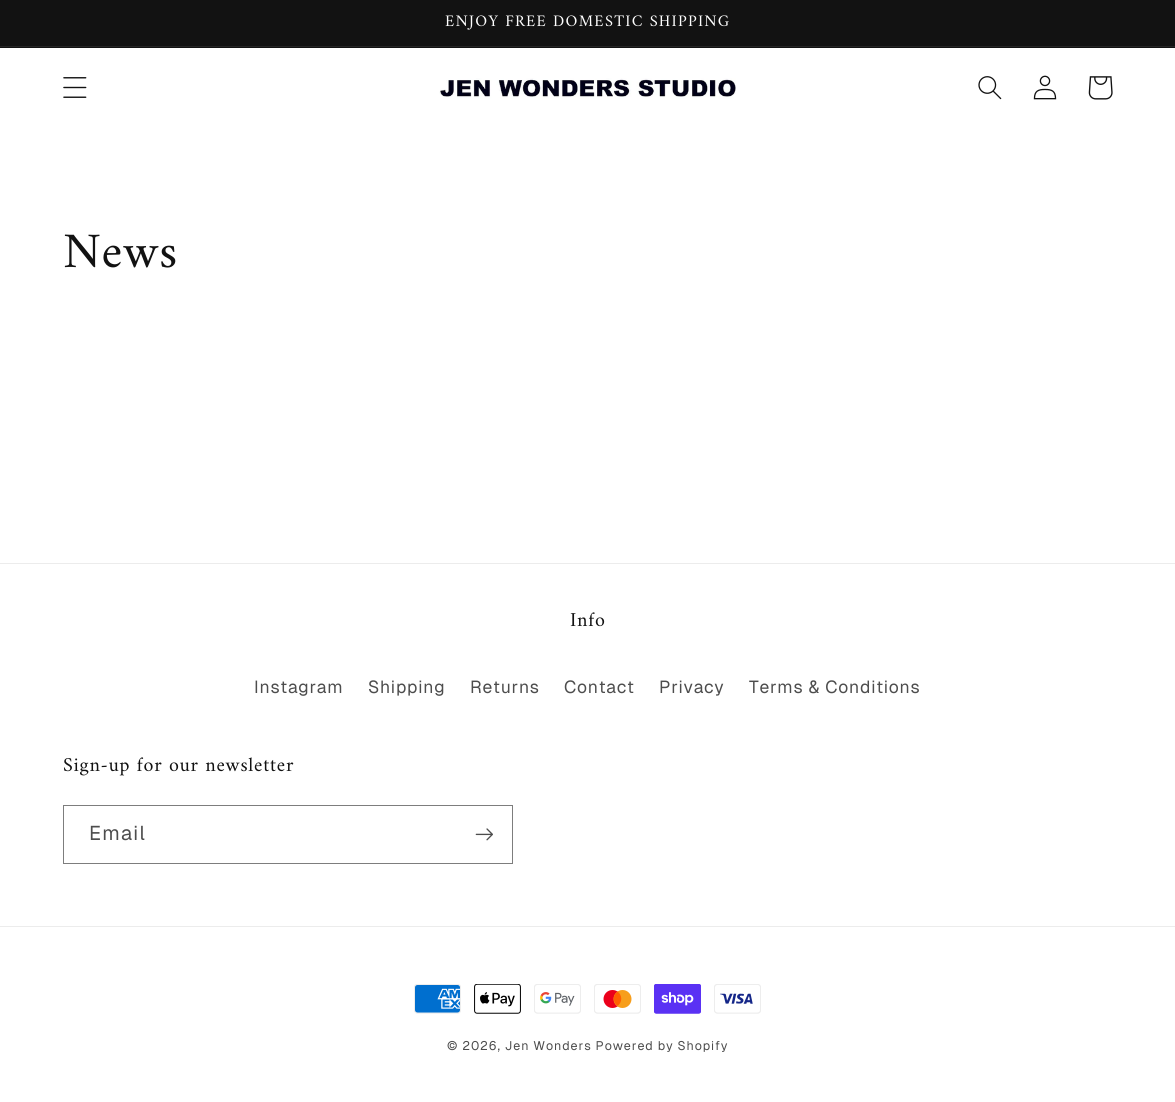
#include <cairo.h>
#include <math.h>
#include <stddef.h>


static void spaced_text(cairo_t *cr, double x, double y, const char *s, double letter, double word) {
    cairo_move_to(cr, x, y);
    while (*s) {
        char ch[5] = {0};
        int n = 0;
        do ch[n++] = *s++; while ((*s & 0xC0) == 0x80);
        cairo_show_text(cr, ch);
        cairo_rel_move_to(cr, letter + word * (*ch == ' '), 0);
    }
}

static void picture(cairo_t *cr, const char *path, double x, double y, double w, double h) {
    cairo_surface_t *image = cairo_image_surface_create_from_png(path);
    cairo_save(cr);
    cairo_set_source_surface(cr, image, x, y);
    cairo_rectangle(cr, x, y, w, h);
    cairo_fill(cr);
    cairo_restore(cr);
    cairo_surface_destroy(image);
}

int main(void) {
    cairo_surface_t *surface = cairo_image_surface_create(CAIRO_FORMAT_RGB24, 1175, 1102);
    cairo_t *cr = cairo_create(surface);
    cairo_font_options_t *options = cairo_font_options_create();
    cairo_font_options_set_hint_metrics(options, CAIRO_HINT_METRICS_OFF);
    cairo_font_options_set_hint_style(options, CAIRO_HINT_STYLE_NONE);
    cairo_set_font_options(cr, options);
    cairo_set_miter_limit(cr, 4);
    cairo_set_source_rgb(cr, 1, 1, 1);
    cairo_paint(cr);
    cairo_set_source_rgb(cr, 0.071, 0.071, 0.071);
    cairo_rectangle(cr, 0, 0, 1175, 48);
    cairo_fill(cr);
    cairo_set_source_rgb(cr, 0.145, 0.145, 0.145);
    cairo_rectangle(cr, 0, 46, 1175, 1);
    cairo_fill(cr);
    cairo_select_font_face(cr, "Amiri", CAIRO_FONT_SLANT_NORMAL, CAIRO_FONT_WEIGHT_NORMAL);
    cairo_set_font_size(cr, 16.25);
    cairo_set_source_rgb(cr, 1, 1, 1);
    spaced_text(cr, 445, 26, "ENJOY FREE DOMESTIC SHIPPING", 1.25, 0);
    picture(cr, "img1.png", 63, 77, 24, 21);
    picture(cr, "img2.png", 439, 78, 297, 21);
    picture(cr, "img3.png", 978, 76, 24, 24);
    picture(cr, "img4.png", 1033, 75, 24, 25);
    picture(cr, "img5.png", 1088, 76, 25, 24);
    cairo_set_font_size(cr, 50);
    cairo_set_source_rgb(cr, 0.071, 0.071, 0.071);
    spaced_text(cr, 63, 267, "News", 0.75, 0);
    cairo_set_source_rgb(cr, 0.925, 0.925, 0.925);
    cairo_rectangle(cr, 0, 563, 1175, 1);
    cairo_fill(cr);
    cairo_set_font_size(cr, 20);
    cairo_set_source_rgb(cr, 0.071, 0.071, 0.071);
    spaced_text(cr, 570, 626, "Info", 0.75, 0);
    cairo_select_font_face(cr, "Geist", CAIRO_FONT_SLANT_NORMAL, CAIRO_FONT_WEIGHT_NORMAL);
    cairo_set_font_size(cr, 17.5);
    cairo_set_source_rgb(cr, 0.302, 0.302, 0.302);
    spaced_text(cr, 254, 693, "Instagram", 0.75, 0);
    spaced_text(cr, 368, 693, "Shipping", 0.75, 0);
    spaced_text(cr, 470, 693, "Returns", 0.75, 0);
    spaced_text(cr, 564, 693, "Contact", 0.75, 0);
    spaced_text(cr, 659, 693, "Privacy", 0.75, 0);
    spaced_text(cr, 749, 693, "Terms & Conditions", 0.75, 0);
    cairo_select_font_face(cr, "Amiri", CAIRO_FONT_SLANT_NORMAL, CAIRO_FONT_WEIGHT_NORMAL);
    cairo_set_font_size(cr, 20);
    cairo_set_source_rgb(cr, 0.071, 0.071, 0.071);
    spaced_text(cr, 63, 771, "Sign-up for our newsletter", 0.75, 0);
    cairo_rectangle(cr, 63.5, 805.5, 449, 58);
    cairo_set_source_rgb(cr, 0.49, 0.49, 0.49);
    cairo_set_line_width(cr, 1);
    cairo_stroke(cr);
    cairo_select_font_face(cr, "Geist", CAIRO_FONT_SLANT_NORMAL, CAIRO_FONT_WEIGHT_NORMAL);
    cairo_set_source_rgb(cr, 0.302, 0.302, 0.302);
    spaced_text(cr, 89, 840, "Email", 1.25, 0);
    picture(cr, "img6.png", 475, 828, 18, 13);
    cairo_set_source_rgb(cr, 0.925, 0.925, 0.925);
    cairo_rectangle(cr, 0, 926, 1175, 1);
    cairo_fill(cr);
    picture(cr, "img7.png", 414, 984, 47, 30);
    picture(cr, "img8.png", 474, 984, 47, 30);
    picture(cr, "img9.png", 534, 984, 47, 30);
    picture(cr, "img10.png", 594, 984, 47, 30);
    picture(cr, "img11.png", 654, 984, 47, 30);
    picture(cr, "img12.png", 714, 984, 47, 30);
    cairo_set_font_size(cr, 12.5);
    cairo_set_source_rgb(cr, 0.302, 0.302, 0.302);
    spaced_text(cr, 447, 1050, "© 2026, Jen Wonders Powered by Shopify", 0.9, 0);
    cairo_surface_write_to_png(surface, "page.png");
    cairo_font_options_destroy(options);
    cairo_destroy(cr);
    cairo_surface_destroy(surface);
    return 0;
}
